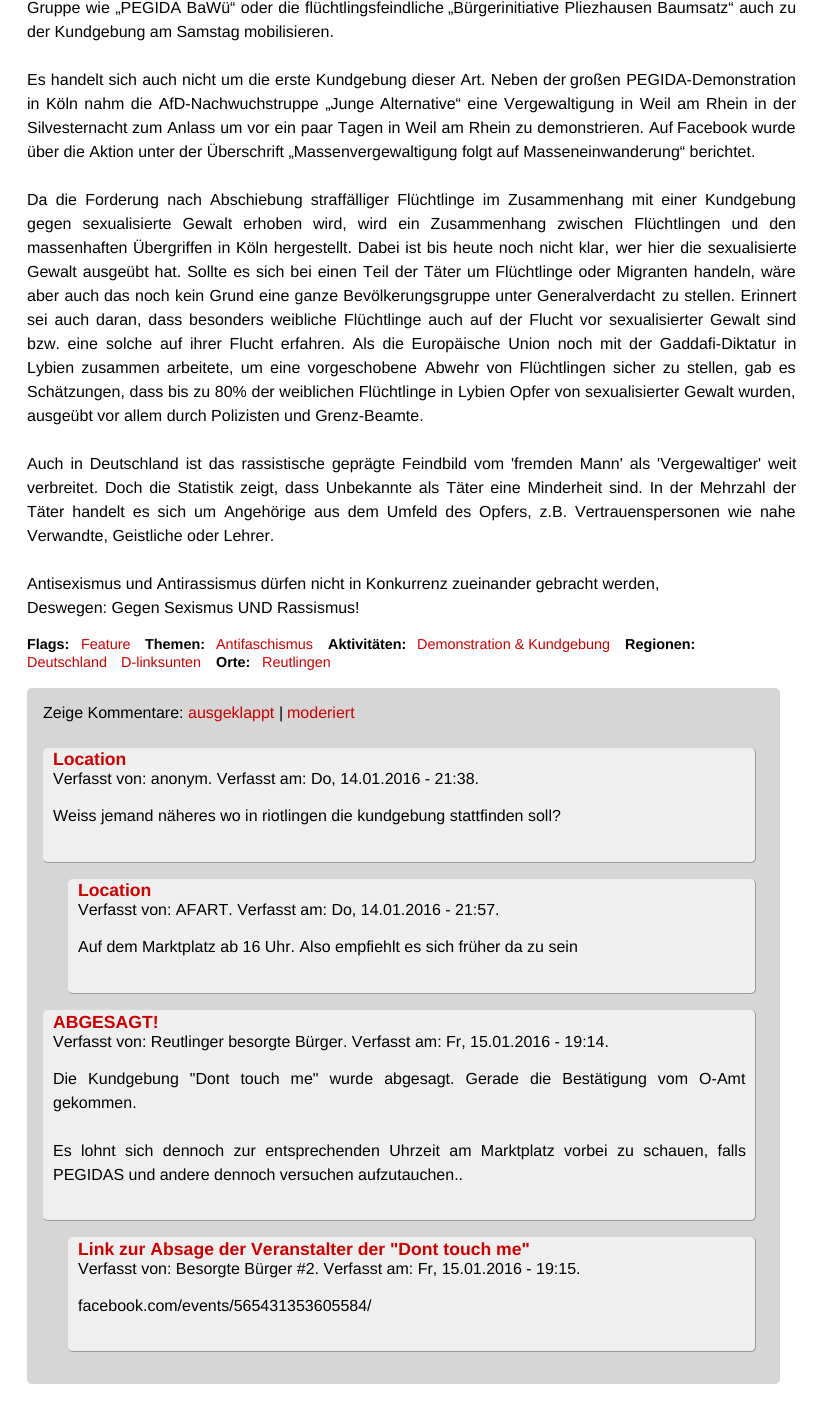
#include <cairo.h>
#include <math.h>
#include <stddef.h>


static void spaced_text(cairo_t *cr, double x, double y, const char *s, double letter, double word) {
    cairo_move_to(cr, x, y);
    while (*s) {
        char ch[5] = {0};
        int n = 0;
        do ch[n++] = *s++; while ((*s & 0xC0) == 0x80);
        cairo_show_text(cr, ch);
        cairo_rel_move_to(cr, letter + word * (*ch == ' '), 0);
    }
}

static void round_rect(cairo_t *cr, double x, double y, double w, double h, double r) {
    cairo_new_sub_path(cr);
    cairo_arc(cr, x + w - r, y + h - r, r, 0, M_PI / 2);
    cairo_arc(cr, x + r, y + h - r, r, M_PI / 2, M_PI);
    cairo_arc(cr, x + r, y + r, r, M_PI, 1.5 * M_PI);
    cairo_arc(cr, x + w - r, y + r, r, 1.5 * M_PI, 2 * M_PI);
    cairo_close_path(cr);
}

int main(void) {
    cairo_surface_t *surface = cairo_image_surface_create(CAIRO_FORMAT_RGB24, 823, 1424);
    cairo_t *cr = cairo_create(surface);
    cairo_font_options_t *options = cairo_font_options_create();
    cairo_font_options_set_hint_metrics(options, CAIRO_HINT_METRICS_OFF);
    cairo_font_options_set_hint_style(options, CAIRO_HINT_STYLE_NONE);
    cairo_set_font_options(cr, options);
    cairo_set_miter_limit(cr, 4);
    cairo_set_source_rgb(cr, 1, 1, 1);
    cairo_paint(cr);
    cairo_select_font_face(cr, "Liberation Sans", CAIRO_FONT_SLANT_NORMAL, CAIRO_FONT_WEIGHT_NORMAL);
    cairo_set_font_size(cr, 16);
    cairo_set_source_rgb(cr, 0, 0, 0);
    spaced_text(cr, 27, 13, "Gruppe wie „PEGIDA BaWü“ oder die flüchtlingsfeindliche", 0, 1);
    spaced_text(cr, 448, 13, "„Bürgerinitiative Pliezhausen Baumsatz“ auch zu", 0, 1);
    cairo_move_to(cr, 27, 37);
    cairo_show_text(cr, "der Kundgebung am Samstag mobilisieren.");
    spaced_text(cr, 27, 85, "Es handelt sich auch nicht um die erste Kundgebung dieser Art. Neben der", 0, 0.75);
    spaced_text(cr, 570, 85, "großen PEGIDA-Demonstration", 0, 1);
    spaced_text(cr, 27, 109, "in Köln nahm die AfD-Nachwuchstruppe „Junge", 0, 2);
    spaced_text(cr, 380, 109, "Alternative“ eine Vergewaltigung in Weil am Rhein in der", 0, 2);
    cairo_move_to(cr, 27, 133);
    cairo_show_text(cr, "Silvesternacht");
    spaced_text(cr, 132, 133, "zum Anlass um vor ein paar Tagen in Weil am Rhein zu demonstrieren. Auf", 0, 0.5);
    cairo_move_to(cr, 677, 133);
    cairo_show_text(cr, "Facebook wurde");
    cairo_move_to(cr, 27, 157);
    cairo_show_text(cr, "über die Aktion unter der Überschrift „Massenvergewaltigung folgt auf Masseneinwanderung“ berichtet.");
    spaced_text(cr, 27, 205, "Da die Forderung nach Abschiebung straffälliger Flüchtlinge im", 0, 3.75);
    spaced_text(cr, 508, 205, "Zusammenhang mit einer Kundgebung", 0, 3.75);
    spaced_text(cr, 27, 229, "gegen sexualisierte Gewalt erhoben", 0, 6.6);
    spaced_text(cr, 313, 229, "wird, wird ein Zusammenhang zwischen Flüchtlingen und den", 0, 6.6);
    cairo_move_to(cr, 27, 253);
    cairo_show_text(cr, "massenhaften");
    spaced_text(cr, 133, 253, "Übergriffen in Köln hergestellt. Dabei ist bis heute noch nicht klar,", 0, 1.25);
    spaced_text(cr, 616, 253, "wer hier die sexualisierte", 0, 1.5);
    spaced_text(cr, 27, 277, "Gewalt ausgeübt hat. Sollte es sich bei einen", 0, 1.5);
    spaced_text(cr, 363, 277, "Teil der Täter um Flüchtlinge oder Migranten handeln, wäre", 0, 1.5);
    spaced_text(cr, 27, 301, "aber auch", 0, 1);
    spaced_text(cr, 104, 301, "das noch kein Grund eine ganze Bevölkerungsgruppe unter Generalverdacht", 0, 0.75);
    spaced_text(cr, 662, 301, "zu stellen. Erinnert", 0, 1);
    spaced_text(cr, 27, 325, "sei auch daran, dass besonders weibliche", 0, 2.5);
    spaced_text(cr, 344, 325, "Flüchtlinge auch auf der Flucht vor sexualisierter Gewalt sind", 0, 2.5);
    spaced_text(cr, 27, 349, "bzw. eine", 0, 3.25);
    spaced_text(cr, 106, 349, "solche auf ihrer Flucht erfahren. Als die Europäische Union noch mit", 0, 3.25);
    spaced_text(cr, 629, 349, "der Gaddafi-Diktatur in", 0, 3.25);
    spaced_text(cr, 27, 373, "Lybien zusammen arbeitete, um eine vorgeschobene", 0, 2.75);
    spaced_text(cr, 425, 373, "Abwehr von Flüchtlingen sicher zu stellen, gab es", 0, 2.75);
    spaced_text(cr, 27, 397, "Schätzungen, dass bis zu 80% der weiblichen Flüchtlinge in Lybien Opfer von sexualisierter Gewalt wurden,", 0, 0.25);
    cairo_move_to(cr, 27, 421);
    cairo_show_text(cr, "ausgeübt vor allem durch Polizisten und Grenz-Beamte.");
    spaced_text(cr, 27, 469, "Auch in Deutschland ist das rassistische geprägte Feindbild vom", 0, 2.5);
    spaced_text(cr, 511, 469, "'fremden Mann' als 'Vergewaltiger' weit", 0, 2.5);
    spaced_text(cr, 27, 493, "verbreitet. Doch die Statistik", 0, 2.4);
    spaced_text(cr, 240, 493, "zeigt, dass Unbekannte als Täter eine Minderheit sind. In der Mehrzahl", 0, 2.4);
    cairo_move_to(cr, 773, 493);
    cairo_show_text(cr, "der");
    spaced_text(cr, 27, 517, "Täter handelt es sich um Angehörige aus dem Umfeld des Opfers, z.B.", 0, 3.5);
    spaced_text(cr, 575, 517, "Vertrauenspersonen wie nahe", 0, 3.5);
    cairo_move_to(cr, 27, 541);
    cairo_show_text(cr, "Verwandte, Geistliche oder Lehrer.");
    cairo_move_to(cr, 27, 589);
    cairo_show_text(cr, "Antisexismus und Antirassismus dürfen nicht in Konkurrenz zueinander gebracht werden,");
    cairo_move_to(cr, 27, 613);
    cairo_show_text(cr, "Deswegen: Gegen Sexismus UND Rassismus!");
    cairo_select_font_face(cr, "Liberation Sans", CAIRO_FONT_SLANT_NORMAL, CAIRO_FONT_WEIGHT_BOLD);
    cairo_set_font_size(cr, 14.4);
    cairo_move_to(cr, 27, 649);
    cairo_show_text(cr, "Flags:");
    cairo_select_font_face(cr, "Liberation Sans", CAIRO_FONT_SLANT_NORMAL, CAIRO_FONT_WEIGHT_NORMAL);
    cairo_set_source_rgb(cr, 0.8, 0, 0);
    cairo_move_to(cr, 81, 649);
    cairo_show_text(cr, "Feature");
    cairo_select_font_face(cr, "Liberation Sans", CAIRO_FONT_SLANT_NORMAL, CAIRO_FONT_WEIGHT_BOLD);
    cairo_set_source_rgb(cr, 0, 0, 0);
    cairo_move_to(cr, 625, 649);
    cairo_show_text(cr, "Regionen:");
    cairo_select_font_face(cr, "Liberation Sans", CAIRO_FONT_SLANT_NORMAL, CAIRO_FONT_WEIGHT_NORMAL);
    cairo_set_source_rgb(cr, 0.8, 0, 0);
    cairo_move_to(cr, 27, 667);
    cairo_show_text(cr, "Deutschland");
    cairo_move_to(cr, 121, 667);
    cairo_show_text(cr, "D-linksunten");
    cairo_select_font_face(cr, "Liberation Sans", CAIRO_FONT_SLANT_NORMAL, CAIRO_FONT_WEIGHT_BOLD);
    cairo_set_source_rgb(cr, 0, 0, 0);
    cairo_move_to(cr, 145, 649);
    cairo_show_text(cr, "Themen:");
    cairo_select_font_face(cr, "Liberation Sans", CAIRO_FONT_SLANT_NORMAL, CAIRO_FONT_WEIGHT_NORMAL);
    cairo_set_source_rgb(cr, 0.8, 0, 0);
    cairo_move_to(cr, 216, 649);
    cairo_show_text(cr, "Antifaschismus");
    cairo_select_font_face(cr, "Liberation Sans", CAIRO_FONT_SLANT_NORMAL, CAIRO_FONT_WEIGHT_BOLD);
    cairo_set_source_rgb(cr, 0, 0, 0);
    cairo_move_to(cr, 328, 649);
    cairo_show_text(cr, "Aktivitäten:");
    cairo_select_font_face(cr, "Liberation Sans", CAIRO_FONT_SLANT_NORMAL, CAIRO_FONT_WEIGHT_NORMAL);
    cairo_set_source_rgb(cr, 0.8, 0, 0);
    cairo_move_to(cr, 417, 649);
    cairo_show_text(cr, "Demonstration & Kundgebung");
    cairo_select_font_face(cr, "Liberation Sans", CAIRO_FONT_SLANT_NORMAL, CAIRO_FONT_WEIGHT_BOLD);
    cairo_set_source_rgb(cr, 0, 0, 0);
    cairo_move_to(cr, 216, 667);
    cairo_show_text(cr, "Orte:");
    cairo_select_font_face(cr, "Liberation Sans", CAIRO_FONT_SLANT_NORMAL, CAIRO_FONT_WEIGHT_NORMAL);
    cairo_set_source_rgb(cr, 0.8, 0, 0);
    cairo_move_to(cr, 262, 667);
    cairo_show_text(cr, "Reutlingen");
    cairo_set_source_rgb(cr, 0.835, 0.839, 0.835);
    round_rect(cr, 27, 688, 753, 696, 5);
    cairo_fill(cr);
    cairo_set_font_size(cr, 16);
    cairo_set_source_rgb(cr, 0, 0, 0);
    cairo_move_to(cr, 43, 718);
    cairo_show_text(cr, "Zeige Kommentare:");
    cairo_set_source_rgb(cr, 0.8, 0, 0);
    cairo_move_to(cr, 188, 718);
    cairo_show_text(cr, "ausgeklappt");
    cairo_set_source_rgb(cr, 0, 0, 0);
    cairo_move_to(cr, 279, 718);
    cairo_show_text(cr, "|");
    cairo_set_source_rgb(cr, 0.8, 0, 0);
    cairo_move_to(cr, 287, 718);
    cairo_show_text(cr, "moderiert");
    cairo_set_source_rgb(cr, 0.937, 0.937, 0.937);
    round_rect(cr, 43, 748, 713, 115, 5);
    cairo_fill(cr);
    cairo_set_source_rgb(cr, 0.6, 0.6, 0.6);
    cairo_set_fill_rule(cr, CAIRO_FILL_RULE_EVEN_ODD);
    cairo_new_path(cr);
    cairo_move_to(cr, 48, 748);
    cairo_line_to(cr, 751, 748);
    cairo_curve_to(cr, 754, 748, 756, 750, 756, 753);
    cairo_line_to(cr, 756, 858);
    cairo_curve_to(cr, 756, 861, 754, 863, 751, 863);
    cairo_line_to(cr, 48, 863);
    cairo_curve_to(cr, 45, 863, 43, 861, 43, 858);
    cairo_line_to(cr, 43, 753);
    cairo_curve_to(cr, 43, 750, 45, 748, 48, 748);
    cairo_close_path(cr);
    cairo_move_to(cr, 48, 748);
    cairo_line_to(cr, 751, 748);
    cairo_curve_to(cr, 753, 748, 755, 750, 755, 753);
    cairo_line_to(cr, 755, 858);
    cairo_curve_to(cr, 755, 860, 753, 862, 751, 862);
    cairo_line_to(cr, 48, 862);
    cairo_curve_to(cr, 45, 862, 43, 860, 43, 858);
    cairo_line_to(cr, 43, 753);
    cairo_curve_to(cr, 43, 750, 45, 748, 48, 748);
    cairo_close_path(cr);
    cairo_fill(cr);
    cairo_select_font_face(cr, "Liberation Sans", CAIRO_FONT_SLANT_NORMAL, CAIRO_FONT_WEIGHT_BOLD);
    cairo_set_font_size(cr, 17.6);
    cairo_set_source_rgb(cr, 0.8, 0, 0);
    cairo_move_to(cr, 53, 765);
    cairo_show_text(cr, "Location");
    cairo_select_font_face(cr, "Liberation Sans", CAIRO_FONT_SLANT_NORMAL, CAIRO_FONT_WEIGHT_NORMAL);
    cairo_set_font_size(cr, 16);
    cairo_set_source_rgb(cr, 0, 0, 0);
    cairo_move_to(cr, 53, 784);
    cairo_show_text(cr, "Verfasst von: anonym. Verfasst am: Do, 14.01.2016 - 21:38.");
    cairo_move_to(cr, 53, 821);
    cairo_show_text(cr, "Weiss jemand näheres wo in riotlingen die kundgebung stattfinden soll?");
    cairo_set_source_rgb(cr, 0.937, 0.937, 0.937);
    round_rect(cr, 68, 879, 688, 115, 5);
    cairo_fill(cr);
    cairo_set_source_rgb(cr, 0.6, 0.6, 0.6);
    cairo_new_path(cr);
    cairo_move_to(cr, 73, 879);
    cairo_line_to(cr, 751, 879);
    cairo_curve_to(cr, 754, 879, 756, 881, 756, 884);
    cairo_line_to(cr, 756, 989);
    cairo_curve_to(cr, 756, 992, 754, 994, 751, 994);
    cairo_line_to(cr, 73, 994);
    cairo_curve_to(cr, 70, 994, 68, 992, 68, 989);
    cairo_line_to(cr, 68, 884);
    cairo_curve_to(cr, 68, 881, 70, 879, 73, 879);
    cairo_close_path(cr);
    cairo_move_to(cr, 73, 879);
    cairo_line_to(cr, 751, 879);
    cairo_curve_to(cr, 753, 879, 755, 881, 755, 884);
    cairo_line_to(cr, 755, 989);
    cairo_curve_to(cr, 755, 991, 753, 993, 751, 993);
    cairo_line_to(cr, 73, 993);
    cairo_curve_to(cr, 70, 993, 68, 991, 68, 989);
    cairo_line_to(cr, 68, 884);
    cairo_curve_to(cr, 68, 881, 70, 879, 73, 879);
    cairo_close_path(cr);
    cairo_fill(cr);
    cairo_select_font_face(cr, "Liberation Sans", CAIRO_FONT_SLANT_NORMAL, CAIRO_FONT_WEIGHT_BOLD);
    cairo_set_font_size(cr, 17.6);
    cairo_set_source_rgb(cr, 0.8, 0, 0);
    cairo_move_to(cr, 78, 896);
    cairo_show_text(cr, "Location");
    cairo_select_font_face(cr, "Liberation Sans", CAIRO_FONT_SLANT_NORMAL, CAIRO_FONT_WEIGHT_NORMAL);
    cairo_set_font_size(cr, 16);
    cairo_set_source_rgb(cr, 0, 0, 0);
    cairo_move_to(cr, 78, 915);
    cairo_show_text(cr, "Verfasst von: AFART. Verfasst am: Do, 14.01.2016 - 21:57.");
    cairo_move_to(cr, 78, 952);
    cairo_show_text(cr, "Auf dem Marktplatz ab 16 Uhr. Also empfiehlt es sich früher da zu sein");
    cairo_set_source_rgb(cr, 0.937, 0.937, 0.937);
    round_rect(cr, 43, 1010, 713, 211, 5);
    cairo_fill(cr);
    cairo_set_source_rgb(cr, 0.6, 0.6, 0.6);
    cairo_new_path(cr);
    cairo_move_to(cr, 48, 1010);
    cairo_line_to(cr, 751, 1010);
    cairo_curve_to(cr, 754, 1010, 756, 1012, 756, 1015);
    cairo_line_to(cr, 756, 1216);
    cairo_curve_to(cr, 756, 1219, 754, 1221, 751, 1221);
    cairo_line_to(cr, 48, 1221);
    cairo_curve_to(cr, 45, 1221, 43, 1219, 43, 1216);
    cairo_line_to(cr, 43, 1015);
    cairo_curve_to(cr, 43, 1012, 45, 1010, 48, 1010);
    cairo_close_path(cr);
    cairo_move_to(cr, 48, 1010);
    cairo_line_to(cr, 751, 1010);
    cairo_curve_to(cr, 753, 1010, 755, 1012, 755, 1015);
    cairo_line_to(cr, 755, 1216);
    cairo_curve_to(cr, 755, 1218, 753, 1220, 751, 1220);
    cairo_line_to(cr, 48, 1220);
    cairo_curve_to(cr, 45, 1220, 43, 1218, 43, 1216);
    cairo_line_to(cr, 43, 1015);
    cairo_curve_to(cr, 43, 1012, 45, 1010, 48, 1010);
    cairo_close_path(cr);
    cairo_fill(cr);
    cairo_select_font_face(cr, "Liberation Sans", CAIRO_FONT_SLANT_NORMAL, CAIRO_FONT_WEIGHT_BOLD);
    cairo_set_font_size(cr, 17.6);
    cairo_set_source_rgb(cr, 0.8, 0, 0);
    cairo_move_to(cr, 53, 1028);
    cairo_show_text(cr, "ABGESAGT!");
    cairo_select_font_face(cr, "Liberation Sans", CAIRO_FONT_SLANT_NORMAL, CAIRO_FONT_WEIGHT_NORMAL);
    cairo_set_font_size(cr, 16);
    cairo_set_source_rgb(cr, 0, 0, 0);
    cairo_move_to(cr, 53, 1047);
    cairo_show_text(cr, "Verfasst von: Reutlinger besorgte Bürger. Verfasst am: Fr, 15.01.2016 - 19:14.");
    spaced_text(cr, 53, 1084, "Die Kundgebung \"Dont touch me\" wurde abgesagt. Gerade die Bestätigung vom O-Amt", 0, 6.6);
    cairo_move_to(cr, 53, 1108);
    cairo_show_text(cr, "gekommen.");
    spaced_text(cr, 53, 1156, "Es lohnt sich dennoch zur entsprechenden Uhrzeit am Marktplatz vorbei zu schauen, falls", 0, 4.9);
    cairo_move_to(cr, 53, 1180);
    cairo_show_text(cr, "PEGIDAS und andere dennoch versuchen aufzutauchen..");
    cairo_set_source_rgb(cr, 0.937, 0.937, 0.937);
    round_rect(cr, 68, 1237, 688, 115, 5);
    cairo_fill(cr);
    cairo_set_source_rgb(cr, 0.6, 0.6, 0.6);
    cairo_new_path(cr);
    cairo_move_to(cr, 73, 1237);
    cairo_line_to(cr, 751, 1237);
    cairo_curve_to(cr, 754, 1237, 756, 1239, 756, 1242);
    cairo_line_to(cr, 756, 1347);
    cairo_curve_to(cr, 756, 1350, 754, 1352, 751, 1352);
    cairo_line_to(cr, 73, 1352);
    cairo_curve_to(cr, 70, 1352, 68, 1350, 68, 1347);
    cairo_line_to(cr, 68, 1242);
    cairo_curve_to(cr, 68, 1239, 70, 1237, 73, 1237);
    cairo_close_path(cr);
    cairo_move_to(cr, 73, 1237);
    cairo_line_to(cr, 751, 1237);
    cairo_curve_to(cr, 753, 1237, 755, 1239, 755, 1242);
    cairo_line_to(cr, 755, 1347);
    cairo_curve_to(cr, 755, 1349, 753, 1351, 751, 1351);
    cairo_line_to(cr, 73, 1351);
    cairo_curve_to(cr, 70, 1351, 68, 1349, 68, 1347);
    cairo_line_to(cr, 68, 1242);
    cairo_curve_to(cr, 68, 1239, 70, 1237, 73, 1237);
    cairo_close_path(cr);
    cairo_fill(cr);
    cairo_select_font_face(cr, "Liberation Sans", CAIRO_FONT_SLANT_NORMAL, CAIRO_FONT_WEIGHT_BOLD);
    cairo_set_font_size(cr, 17.6);
    cairo_set_source_rgb(cr, 0.8, 0, 0);
    cairo_move_to(cr, 78, 1255);
    cairo_show_text(cr, "Link zur Absage der Veranstalter der \"Dont touch me\"");
    cairo_select_font_face(cr, "Liberation Sans", CAIRO_FONT_SLANT_NORMAL, CAIRO_FONT_WEIGHT_NORMAL);
    cairo_set_font_size(cr, 16);
    cairo_set_source_rgb(cr, 0, 0, 0);
    cairo_move_to(cr, 78, 1274);
    cairo_show_text(cr, "Verfasst von: Besorgte Bürger #2. Verfasst am: Fr, 15.01.2016 - 19:15.");
    cairo_move_to(cr, 78, 1311);
    cairo_show_text(cr, "facebook.com/events/565431353605584/");
    cairo_surface_write_to_png(surface, "page.png");
    cairo_font_options_destroy(options);
    cairo_destroy(cr);
    cairo_surface_destroy(surface);
    return 0;
}
